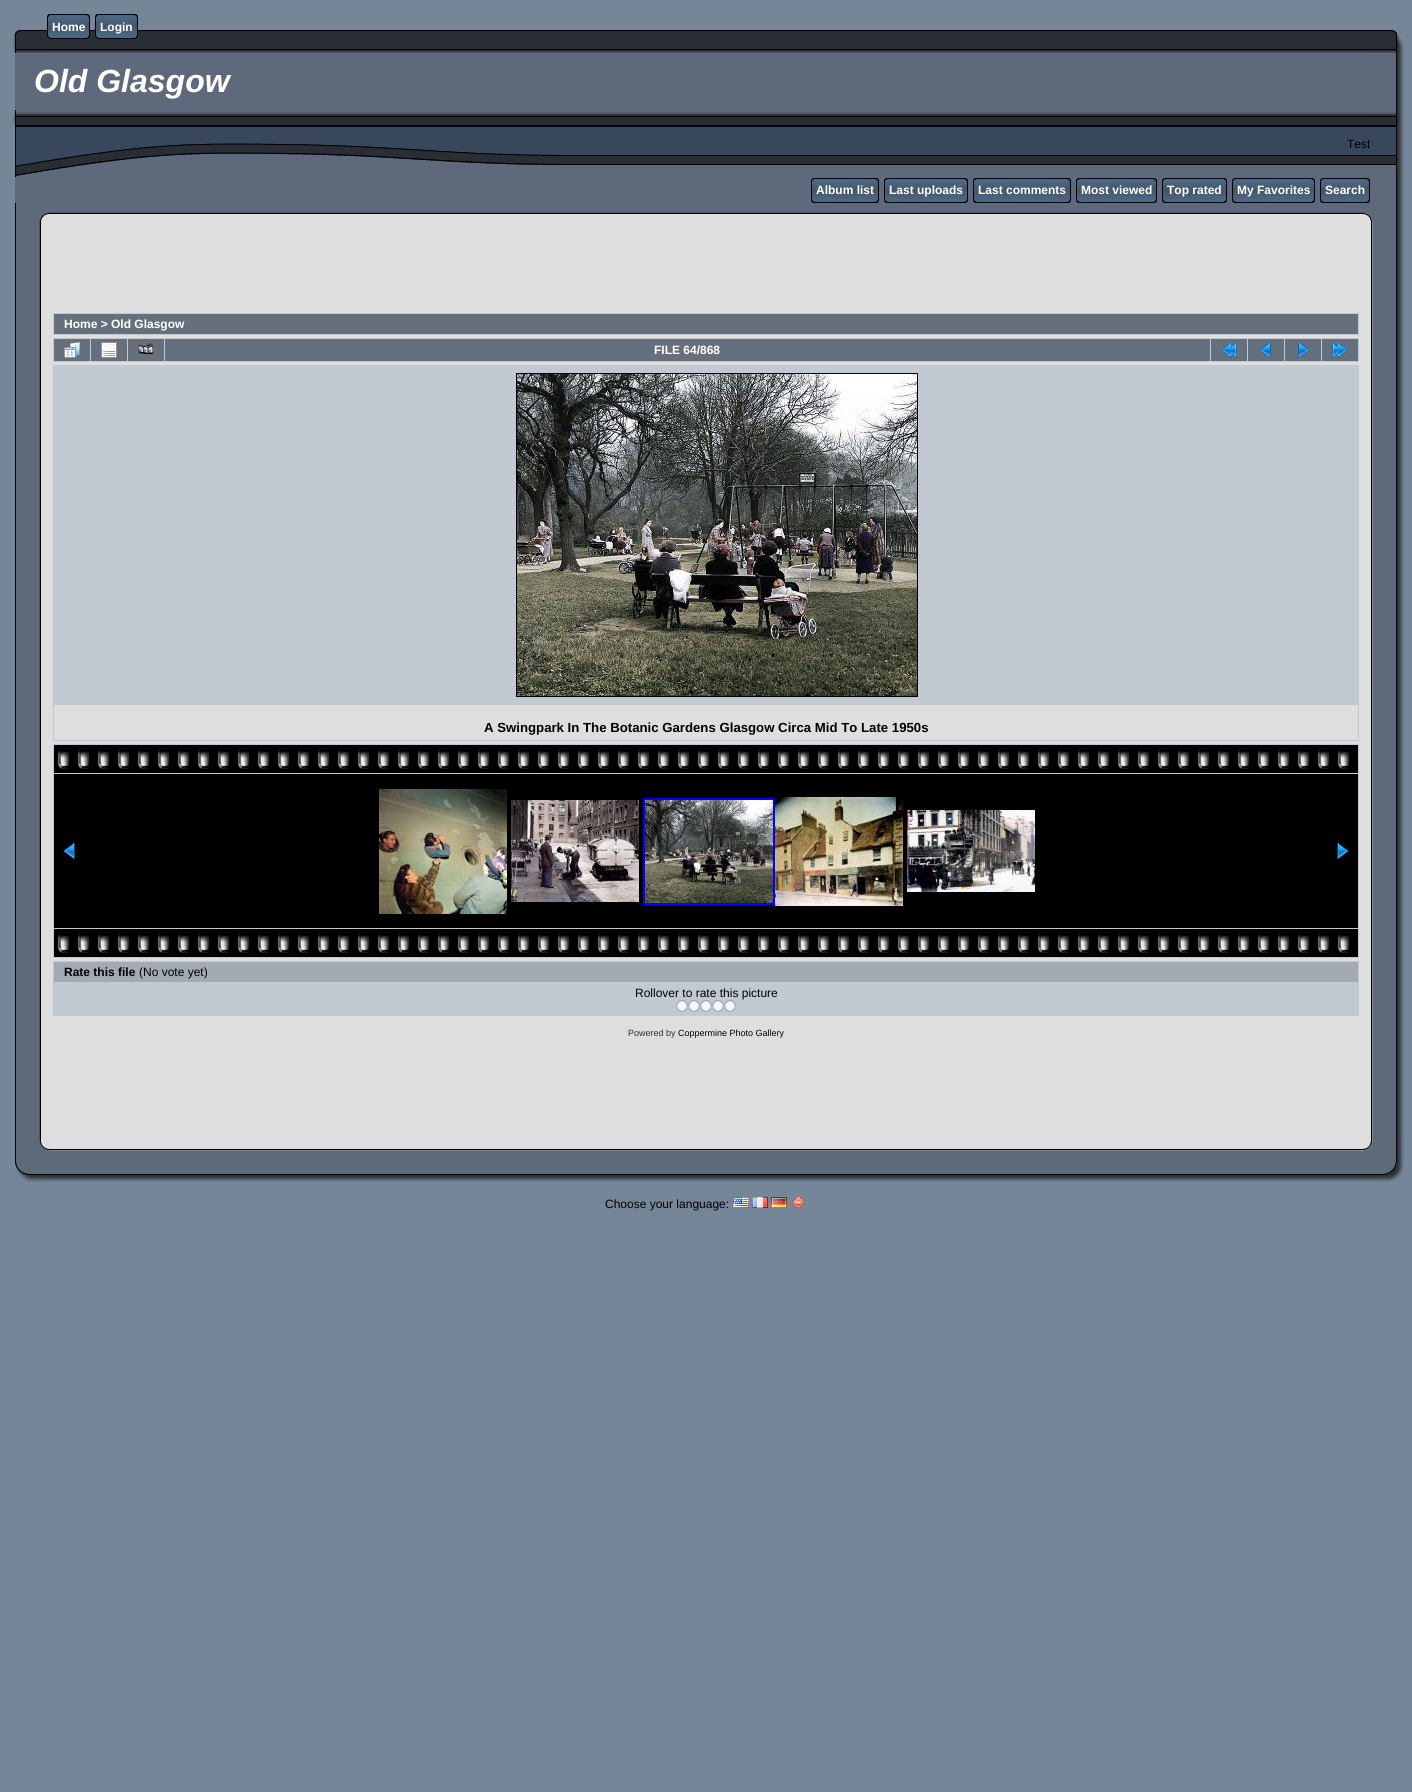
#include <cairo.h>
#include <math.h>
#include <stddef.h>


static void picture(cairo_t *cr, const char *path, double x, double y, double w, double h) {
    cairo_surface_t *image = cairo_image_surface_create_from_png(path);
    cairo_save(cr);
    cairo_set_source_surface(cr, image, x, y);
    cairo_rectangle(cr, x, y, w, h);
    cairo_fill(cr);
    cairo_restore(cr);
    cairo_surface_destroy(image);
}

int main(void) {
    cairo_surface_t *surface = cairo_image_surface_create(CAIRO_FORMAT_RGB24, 1412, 1792);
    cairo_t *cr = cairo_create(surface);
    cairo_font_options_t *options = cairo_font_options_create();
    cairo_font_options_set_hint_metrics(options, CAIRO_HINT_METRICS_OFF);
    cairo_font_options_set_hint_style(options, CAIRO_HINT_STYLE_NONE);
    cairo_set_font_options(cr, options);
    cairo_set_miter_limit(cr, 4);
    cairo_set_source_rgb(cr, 0.459, 0.525, 0.596);
    cairo_paint(cr);
    picture(cr, "img1.png", 42, 30, 1328, 23);
    picture(cr, "img2.png", 47, 14, 5, 25);
    picture(cr, "img3.png", 52, 14, 33, 25);
    cairo_select_font_face(cr, "Liberation Sans", CAIRO_FONT_SLANT_NORMAL, CAIRO_FONT_WEIGHT_BOLD);
    cairo_set_font_size(cr, 12);
    cairo_set_source_rgb(cr, 1, 1, 1);
    cairo_move_to(cr, 52, 31);
    cairo_show_text(cr, "Home");
    picture(cr, "img4.png", 85, 14, 5, 25);
    picture(cr, "img2.png", 95, 14, 5, 25);
    picture(cr, "img5.png", 100, 14, 33, 25);
    cairo_move_to(cr, 100, 31);
    cairo_show_text(cr, "Login");
    picture(cr, "img4.png", 133, 14, 5, 25);
    picture(cr, "img6.png", 13, 30, 29, 23);
    picture(cr, "img7.png", 1370, 30, 34, 23);
    cairo_set_source_rgb(cr, 0.369, 0.412, 0.482);
    cairo_rectangle(cr, 15, 53, 1381, 57);
    cairo_fill(cr);
    picture(cr, "img8.png", 1396, 53, 8, 57);
    cairo_select_font_face(cr, "Liberation Sans", CAIRO_FONT_SLANT_ITALIC, CAIRO_FONT_WEIGHT_BOLD);
    cairo_set_font_size(cr, 32);
    cairo_set_source_rgb(cr, 1, 1, 1);
    cairo_move_to(cr, 34, 92);
    cairo_show_text(cr, "Old Glasgow");
    picture(cr, "img9.png", 13, 110, 547, 67);
    picture(cr, "img10.png", 560, 110, 810, 67);
    cairo_select_font_face(cr, "Liberation Sans", CAIRO_FONT_SLANT_NORMAL, CAIRO_FONT_WEIGHT_NORMAL);
    cairo_set_font_size(cr, 12);
    cairo_set_source_rgb(cr, 0, 0, 0);
    cairo_move_to(cr, 1347, 148);
    cairo_show_text(cr, "Test");
    picture(cr, "img11.png", 1370, 110, 34, 67);
    cairo_set_source_rgb(cr, 0.369, 0.412, 0.482);
    cairo_rectangle(cr, 15, 177, 1355, 26);
    cairo_fill(cr);
    picture(cr, "img12.png", 1370, 177, 34, 26);
    picture(cr, "img13.png", 811, 178, 5, 25);
    picture(cr, "img14.png", 816, 178, 58, 25);
    cairo_select_font_face(cr, "Liberation Sans", CAIRO_FONT_SLANT_NORMAL, CAIRO_FONT_WEIGHT_BOLD);
    cairo_set_source_rgb(cr, 1, 1, 1);
    cairo_move_to(cr, 816, 194);
    cairo_show_text(cr, "Album list");
    picture(cr, "img15.png", 874, 178, 5, 25);
    picture(cr, "img13.png", 884, 178, 5, 25);
    picture(cr, "img16.png", 889, 178, 74, 25);
    cairo_move_to(cr, 889, 194);
    cairo_show_text(cr, "Last uploads");
    picture(cr, "img15.png", 963, 178, 5, 25);
    picture(cr, "img13.png", 973, 178, 5, 25);
    picture(cr, "img17.png", 978, 178, 88, 25);
    cairo_move_to(cr, 978, 194);
    cairo_show_text(cr, "Last comments");
    picture(cr, "img15.png", 1066, 178, 5, 25);
    picture(cr, "img13.png", 1076, 178, 5, 25);
    picture(cr, "img18.png", 1081, 178, 71, 25);
    cairo_move_to(cr, 1081, 194);
    cairo_show_text(cr, "Most viewed");
    picture(cr, "img15.png", 1152, 178, 5, 25);
    picture(cr, "img13.png", 1162, 178, 5, 25);
    picture(cr, "img19.png", 1167, 178, 55, 25);
    cairo_move_to(cr, 1167, 194);
    cairo_show_text(cr, "Top rated");
    picture(cr, "img15.png", 1222, 178, 5, 25);
    picture(cr, "img13.png", 1232, 178, 5, 25);
    picture(cr, "img20.png", 1237, 178, 73, 25);
    cairo_move_to(cr, 1237, 194);
    cairo_show_text(cr, "My Favorites");
    picture(cr, "img15.png", 1310, 178, 5, 25);
    picture(cr, "img13.png", 1320, 178, 5, 25);
    picture(cr, "img21.png", 1325, 178, 40, 25);
    cairo_move_to(cr, 1325, 194);
    cairo_show_text(cr, "Search");
    picture(cr, "img15.png", 1365, 178, 5, 25);
    picture(cr, "img22.png", 15, 203, 27, 18);
    picture(cr, "img23.png", 42, 203, 14, 18);
    picture(cr, "img24.png", 56, 203, 1300, 18);
    picture(cr, "img25.png", 1356, 203, 14, 18);
    picture(cr, "img26.png", 1370, 203, 34, 18);
    picture(cr, "img27.png", 15, 221, 27, 917);
    cairo_set_source_rgb(cr, 0.871, 0.871, 0.871);
    cairo_rectangle(cr, 42, 221, 1328, 917);
    cairo_fill(cr);
    cairo_set_source_rgb(cr, 0.761, 0.788, 0.827);
    cairo_rectangle(cr, 53, 313, 1306, 22);
    cairo_fill(cr);
    cairo_set_source_rgb(cr, 0.4, 0.439, 0.486);
    cairo_rectangle(cr, 54, 314, 1304, 20);
    cairo_fill(cr);
    cairo_set_source_rgb(cr, 1, 1, 1);
    cairo_move_to(cr, 64, 328);
    cairo_show_text(cr, "Home > Old Glasgow");
    cairo_set_source_rgb(cr, 0.761, 0.788, 0.827);
    cairo_rectangle(cr, 53, 338, 1306, 24);
    cairo_fill(cr);
    cairo_set_source_rgb(cr, 0.4, 0.439, 0.486);
    cairo_rectangle(cr, 54, 339, 36, 22);
    cairo_fill(cr);
    picture(cr, "img28.png", 64, 342, 16, 16);
    cairo_rectangle(cr, 91, 339, 36, 22);
    cairo_fill(cr);
    picture(cr, "img29.png", 101, 342, 16, 16);
    cairo_rectangle(cr, 128, 339, 36, 22);
    cairo_fill(cr);
    picture(cr, "img30.png", 138, 343, 16, 12);
    cairo_rectangle(cr, 165, 339, 1045, 22);
    cairo_fill(cr);
    cairo_set_source_rgb(cr, 1, 1, 1);
    cairo_move_to(cr, 654, 354);
    cairo_show_text(cr, "FILE 64/868");
    cairo_set_source_rgb(cr, 0.4, 0.439, 0.486);
    cairo_rectangle(cr, 1211, 339, 36, 22);
    cairo_fill(cr);
    picture(cr, "img31.png", 1221, 342, 16, 16);
    cairo_rectangle(cr, 1248, 339, 36, 22);
    cairo_fill(cr);
    picture(cr, "img32.png", 1259, 342, 12, 16);
    cairo_rectangle(cr, 1285, 339, 36, 22);
    cairo_fill(cr);
    picture(cr, "img33.png", 1298, 342, 12, 16);
    cairo_rectangle(cr, 1322, 339, 36, 22);
    cairo_fill(cr);
    picture(cr, "img34.png", 1332, 342, 16, 16);
    cairo_set_source_rgb(cr, 0.761, 0.788, 0.827);
    cairo_rectangle(cr, 53, 365, 1306, 376);
    cairo_fill(cr);
    cairo_rectangle(cr, 516.5, 373.5, 401, 323);
    cairo_set_source_rgb(cr, 0, 0, 0);
    cairo_set_line_width(cr, 1);
    cairo_stroke(cr);
    picture(cr, "img35.png", 517, 374, 400, 322);
    cairo_set_source_rgb(cr, 0.871, 0.871, 0.871);
    cairo_rectangle(cr, 54, 705, 1304, 35);
    cairo_fill(cr);
    cairo_set_font_size(cr, 13.2);
    cairo_set_source_rgb(cr, 0, 0, 0);
    cairo_move_to(cr, 484, 732);
    cairo_show_text(cr, "A Swingpark In The Botanic Gardens Glasgow Circa Mid To Late 1950s");
    cairo_set_source_rgb(cr, 0.761, 0.788, 0.827);
    cairo_rectangle(cr, 53, 744, 1306, 214);
    cairo_fill(cr);
    cairo_set_source_rgb(cr, 0, 0, 0);
    cairo_rectangle(cr, 54, 745, 1304, 28);
    cairo_fill(cr);
    picture(cr, "img36.png", 57, 745, 1301, 24);
    cairo_rectangle(cr, 54, 774, 1304, 154);
    cairo_fill(cr);
    picture(cr, "img37.png", 63, 843, 12, 16);
    picture(cr, "img38.png", 379, 789, 128, 125);
    picture(cr, "img39.png", 511, 800, 128, 102);
    cairo_rectangle(cr, 644, 799, 130, 105);
    cairo_set_source_rgb(cr, 0, 0, 1);
    cairo_set_line_width(cr, 2);
    cairo_stroke(cr);
    picture(cr, "img40.png", 645, 800, 128, 103);
    picture(cr, "img41.png", 775, 797, 128, 109);
    picture(cr, "img42.png", 907, 810, 128, 82);
    picture(cr, "img43.png", 1337, 843, 12, 16);
    cairo_set_source_rgb(cr, 0, 0, 0);
    cairo_rectangle(cr, 54, 929, 1304, 28);
    cairo_fill(cr);
    picture(cr, "img36.png", 57, 929, 1301, 24);
    cairo_set_source_rgb(cr, 0.761, 0.788, 0.827);
    cairo_rectangle(cr, 53, 961, 1306, 55);
    cairo_fill(cr);
    cairo_set_source_rgb(cr, 0.639, 0.667, 0.706);
    cairo_rectangle(cr, 54, 962, 1304, 20);
    cairo_fill(cr);
    cairo_set_font_size(cr, 12);
    cairo_set_source_rgb(cr, 0, 0, 0);
    cairo_move_to(cr, 64, 976);
    cairo_show_text(cr, "Rate this file");
    cairo_select_font_face(cr, "Liberation Sans", CAIRO_FONT_SLANT_NORMAL, CAIRO_FONT_WEIGHT_NORMAL);
    cairo_move_to(cr, 139, 976);
    cairo_show_text(cr, "(No vote yet)");
    cairo_move_to(cr, 635, 997);
    cairo_show_text(cr, "Rollover to rate this picture");
    picture(cr, "img44.png", 676, 1000, 12, 12);
    picture(cr, "img44.png", 688, 1000, 12, 12);
    picture(cr, "img44.png", 700, 1000, 12, 12);
    picture(cr, "img44.png", 712, 1000, 12, 12);
    picture(cr, "img44.png", 724, 1000, 12, 12);
    cairo_set_font_size(cr, 9);
    cairo_set_source_rgb(cr, 0.161, 0.18, 0.204);
    cairo_move_to(cr, 628, 1036);
    cairo_show_text(cr, "Powered by");
    cairo_set_source_rgb(cr, 0, 0, 0);
    cairo_move_to(cr, 678, 1036);
    cairo_show_text(cr, "Coppermine Photo Gallery");
    picture(cr, "img45.png", 1370, 221, 34, 917);
    picture(cr, "img46.png", 1372, 516, 1, 34);
    picture(cr, "img47.png", 15, 1138, 27, 45);
    picture(cr, "img48.png", 42, 1138, 208, 44);
    picture(cr, "img49.png", 250, 1138, 912, 44);
    picture(cr, "img50.png", 1162, 1138, 208, 44);
    picture(cr, "img51.png", 1370, 1138, 34, 44);
    cairo_set_font_size(cr, 12);
    cairo_move_to(cr, 605, 1208);
    cairo_show_text(cr, "Choose your language:");
    picture(cr, "img52.png", 733, 1197, 16, 11);
    picture(cr, "img53.png", 752, 1197, 16, 11);
    picture(cr, "img54.png", 771, 1197, 16, 11);
    picture(cr, "img55.png", 793, 1197, 11, 11);
    cairo_surface_write_to_png(surface, "page.png");
    cairo_font_options_destroy(options);
    cairo_destroy(cr);
    cairo_surface_destroy(surface);
    return 0;
}
